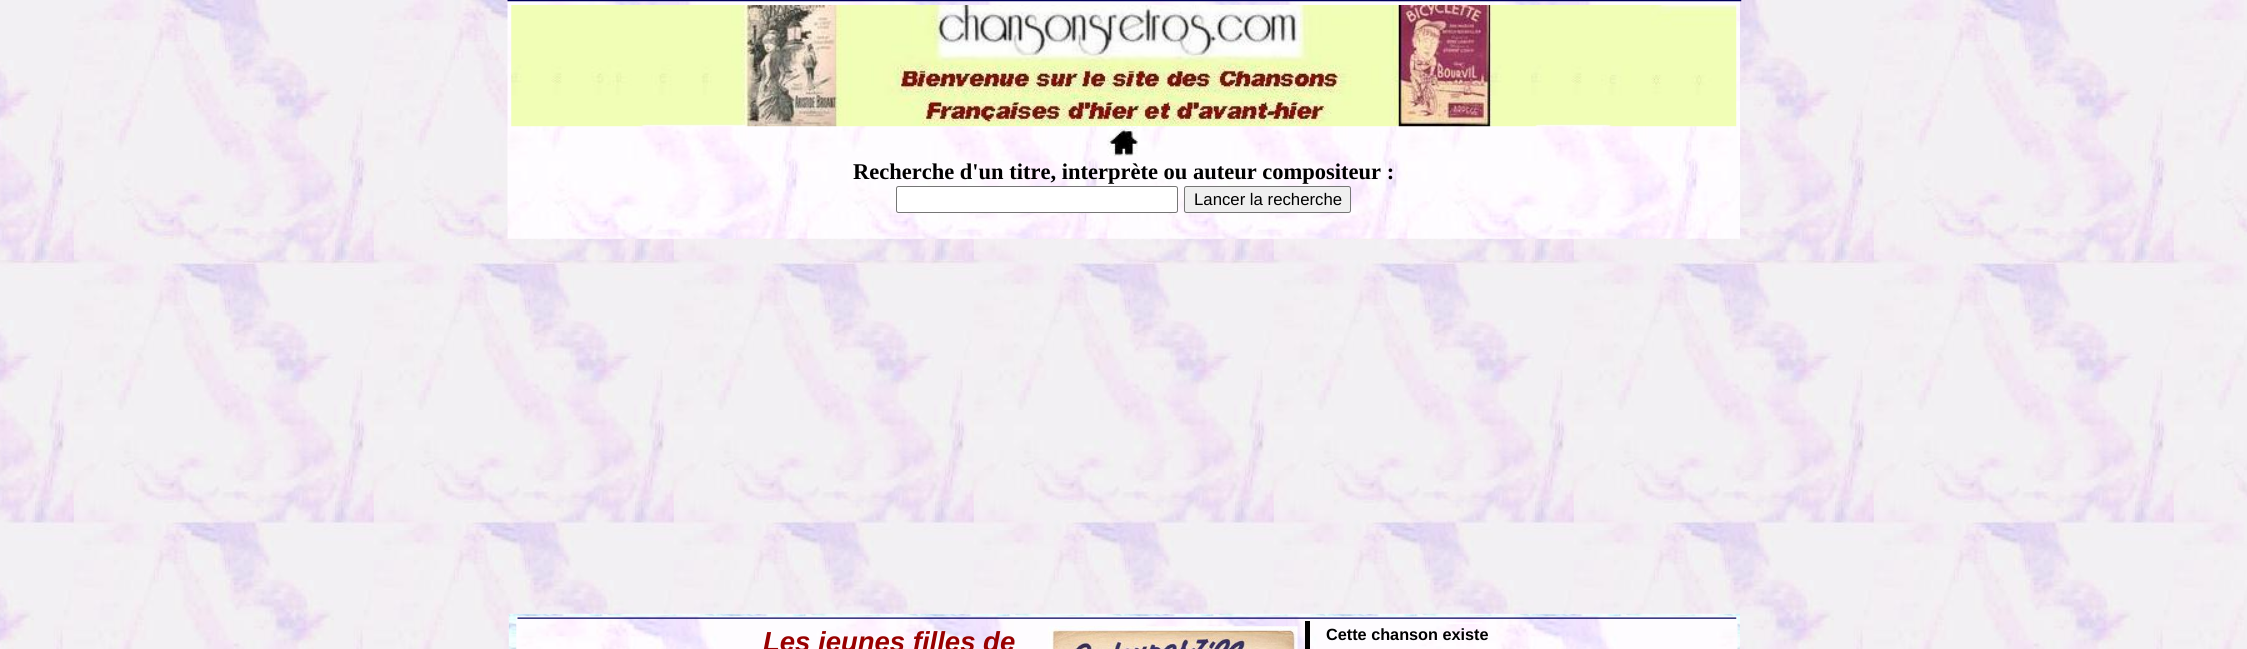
#include <cairo.h>
#include <math.h>
#include <stddef.h>


static void round_rect(cairo_t *cr, double x, double y, double w, double h, double r) {
    cairo_new_sub_path(cr);
    cairo_arc(cr, x + w - r, y + h - r, r, 0, M_PI / 2);
    cairo_arc(cr, x + r, y + h - r, r, M_PI / 2, M_PI);
    cairo_arc(cr, x + r, y + r, r, M_PI, 1.5 * M_PI);
    cairo_arc(cr, x + w - r, y + r, r, 1.5 * M_PI, 2 * M_PI);
    cairo_close_path(cr);
}

static void picture(cairo_t *cr, const char *path, double x, double y, double w, double h) {
    cairo_surface_t *image = cairo_image_surface_create_from_png(path);
    cairo_save(cr);
    cairo_set_source_surface(cr, image, x, y);
    cairo_rectangle(cr, x, y, w, h);
    cairo_fill(cr);
    cairo_restore(cr);
    cairo_surface_destroy(image);
}

int main(void) {
    cairo_surface_t *surface = cairo_image_surface_create(CAIRO_FORMAT_RGB24, 2247, 649);
    cairo_t *cr = cairo_create(surface);
    cairo_font_options_t *options = cairo_font_options_create();
    cairo_font_options_set_hint_metrics(options, CAIRO_HINT_METRICS_OFF);
    cairo_font_options_set_hint_style(options, CAIRO_HINT_STYLE_NONE);
    cairo_set_font_options(cr, options);
    cairo_set_miter_limit(cr, 4);
    cairo_set_source_rgb(cr, 1, 1, 1);
    cairo_paint(cr);
    picture(cr, "img1.png", 0, 0, 2247, 649);
    picture(cr, "img3.png", 507, 1, 1233, 238);
    picture(cr, "img2.png", 507, 0, 1235, 2);
    picture(cr, "img4.png", 511, 5, 1226, 122);
    picture(cr, "img5.png", 1107, 126, 33, 31);
    cairo_select_font_face(cr, "Liberation Serif", CAIRO_FONT_SLANT_NORMAL, CAIRO_FONT_WEIGHT_BOLD);
    cairo_set_font_size(cr, 22.5);
    cairo_set_source_rgb(cr, 0, 0, 0);
    cairo_move_to(cr, 853, 179);
    cairo_show_text(cr, "Recherche d'un titre, interprète ou auteur compositeur :");
    cairo_set_source_rgb(cr, 1, 1, 1);
    round_rect(cr, 896.5, 186.5, 281, 26, 2);
    cairo_fill_preserve(cr);
    cairo_set_source_rgb(cr, 0.463, 0.463, 0.463);
    cairo_set_line_width(cr, 1);
    cairo_stroke(cr);
    cairo_set_source_rgb(cr, 0.937, 0.937, 0.937);
    round_rect(cr, 1184.5, 186.5, 166, 26, 2);
    cairo_fill_preserve(cr);
    cairo_set_source_rgb(cr, 0.463, 0.463, 0.463);
    cairo_stroke(cr);
    cairo_select_font_face(cr, "Liberation Sans", CAIRO_FONT_SLANT_NORMAL, CAIRO_FONT_WEIGHT_NORMAL);
    cairo_set_font_size(cr, 16.75);
    cairo_set_source_rgb(cr, 0, 0, 0);
    cairo_move_to(cr, 1194, 205);
    cairo_show_text(cr, "Lancer la recherche");
    picture(cr, "img6.png", 508, 613, 1232, 36);
    picture(cr, "img7.png", 516, 616, 1222, 33);
    picture(cr, "img8.png", 517, 617, 1220, 2);
    cairo_select_font_face(cr, "Liberation Sans", CAIRO_FONT_SLANT_ITALIC, CAIRO_FONT_WEIGHT_BOLD);
    cairo_set_font_size(cr, 27.5);
    cairo_set_source_rgb(cr, 0.6, 0, 0);
    cairo_move_to(cr, 763, 651);
    cairo_show_text(cr, "Les jeunes filles de");
    picture(cr, "img9.png", 1048, 626, 250, 23);
    cairo_set_source_rgb(cr, 0, 0, 0);
    cairo_rectangle(cr, 1305, 621, 5, 28);
    cairo_fill(cr);
    picture(cr, "img10.png", 1449, 622, 33, 2);
    cairo_select_font_face(cr, "Liberation Sans", CAIRO_FONT_SLANT_NORMAL, CAIRO_FONT_WEIGHT_BOLD);
    cairo_set_font_size(cr, 16.25);
    cairo_move_to(cr, 1326, 640);
    cairo_show_text(cr, "Cette chanson existe");
    cairo_surface_write_to_png(surface, "page.png");
    cairo_font_options_destroy(options);
    cairo_destroy(cr);
    cairo_surface_destroy(surface);
    return 0;
}
